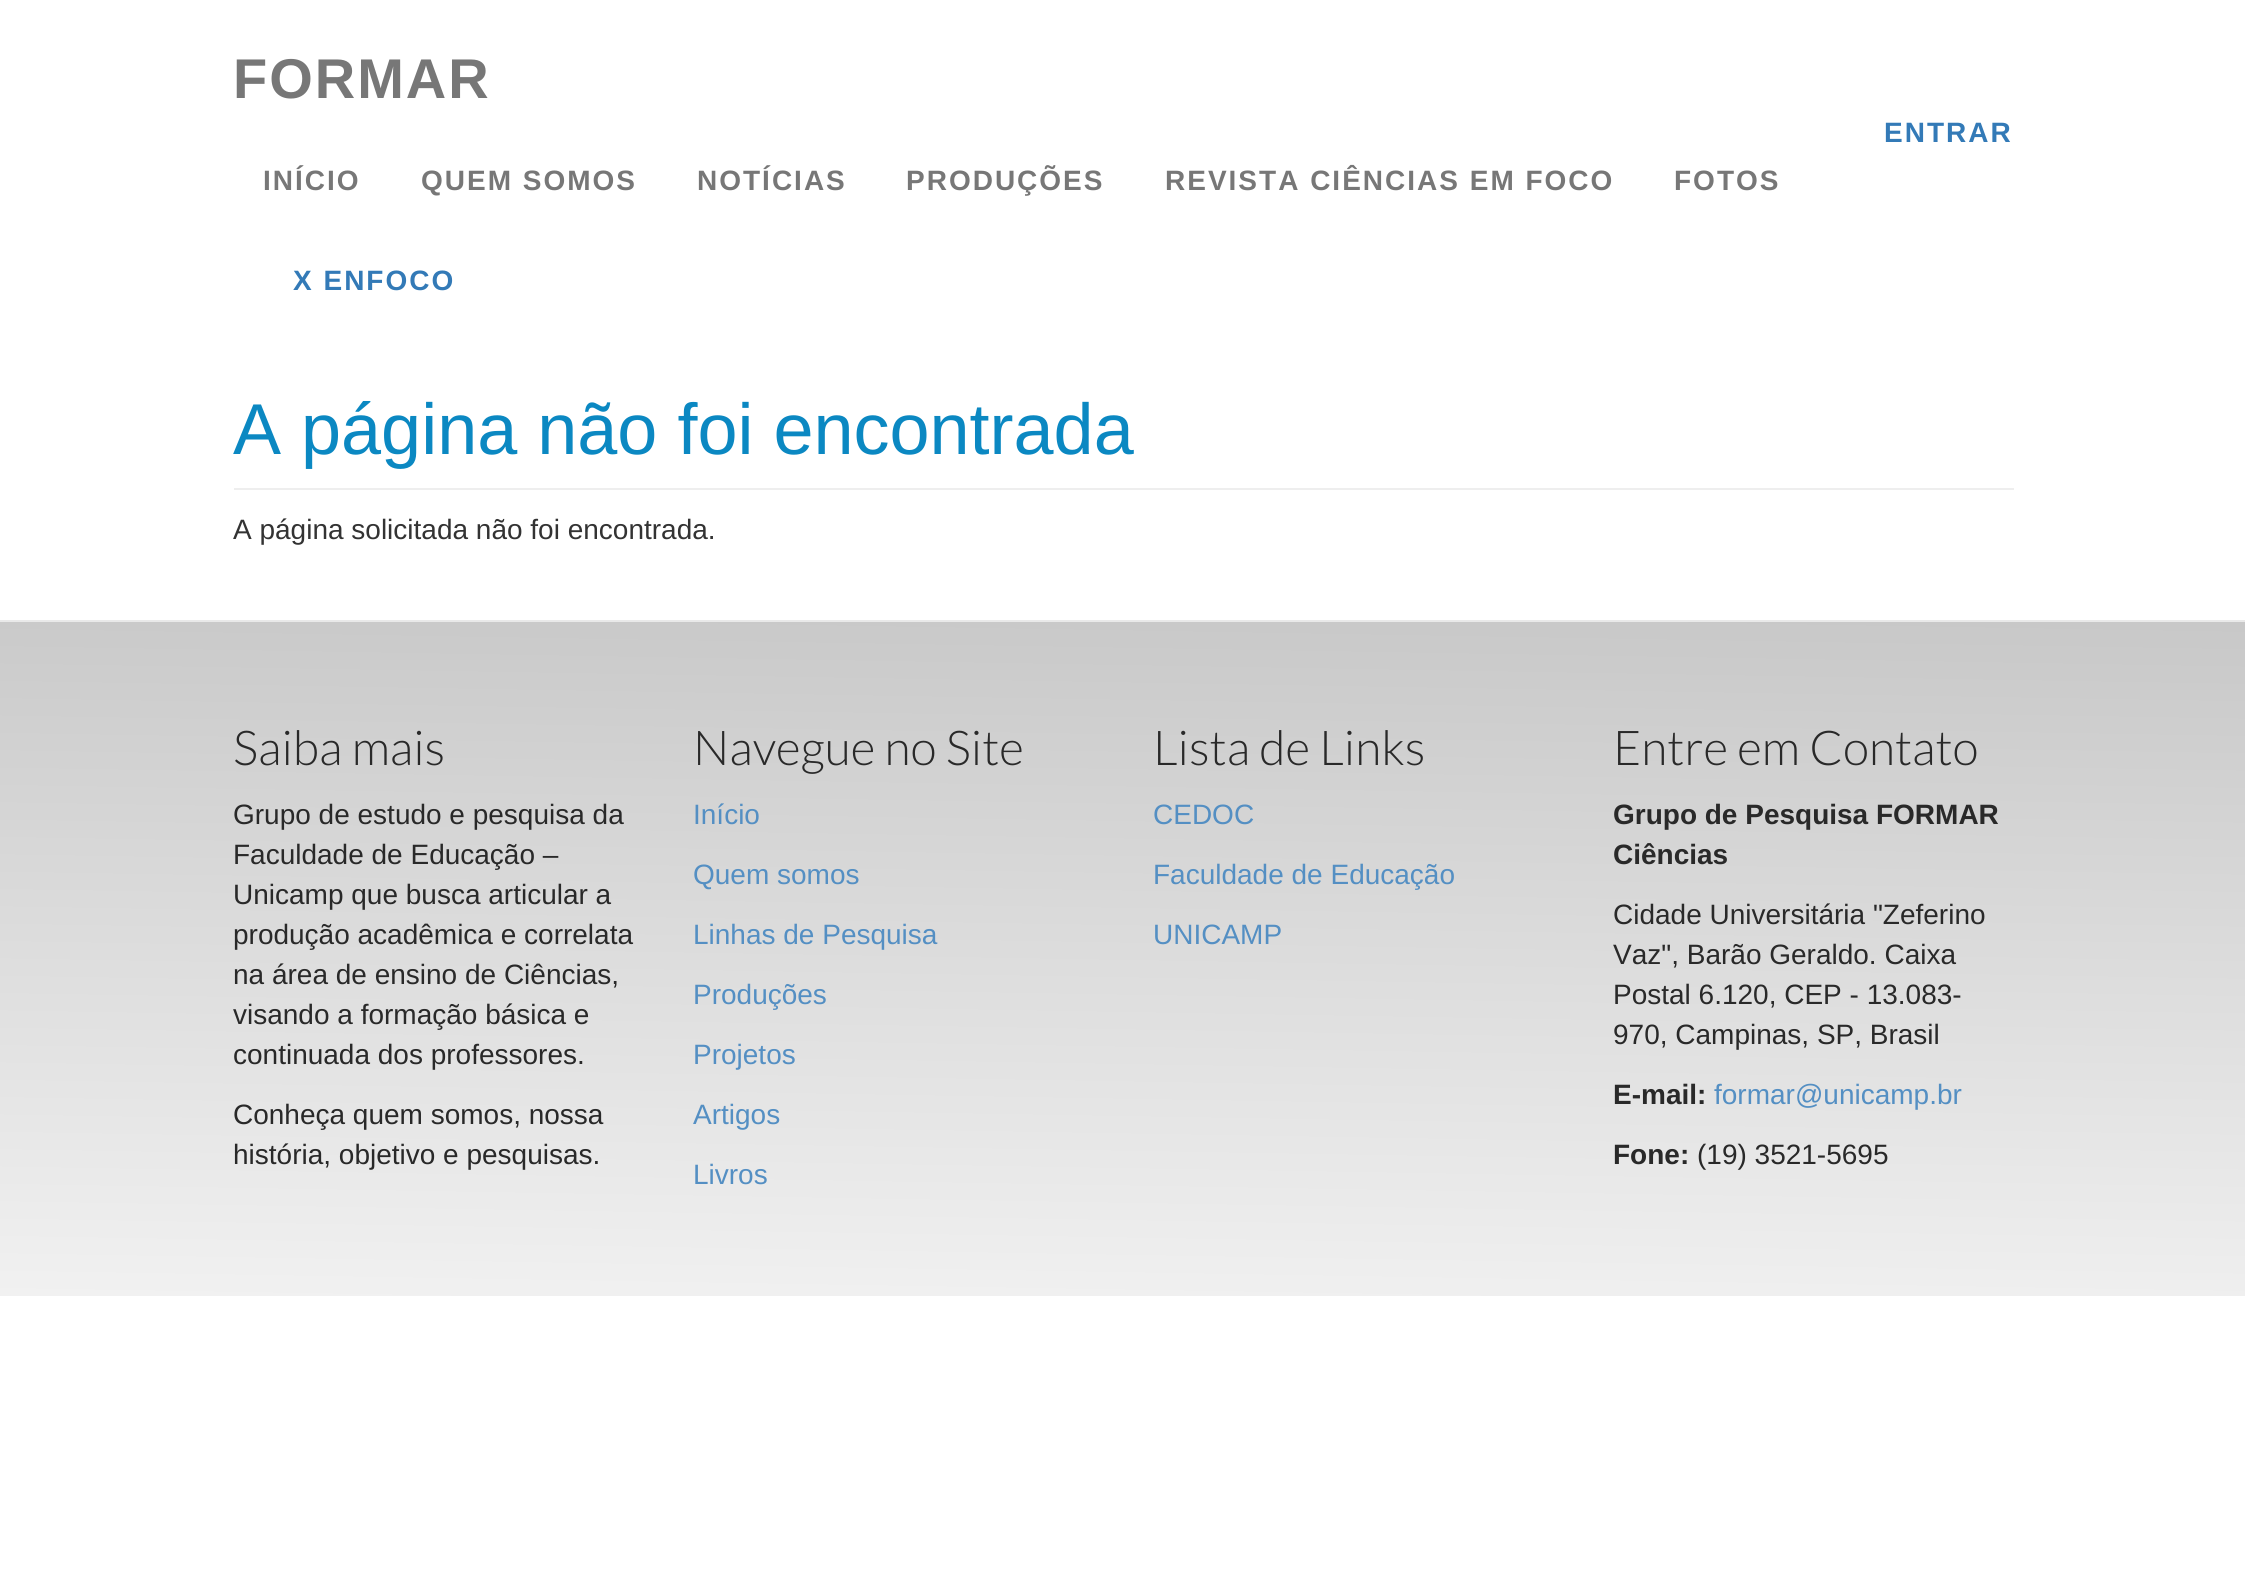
#include <cairo.h>
#include <math.h>
#include <stddef.h>


static void spaced_text(cairo_t *cr, double x, double y, const char *s, double letter, double word) {
    cairo_move_to(cr, x, y);
    while (*s) {
        char ch[5] = {0};
        int n = 0;
        do ch[n++] = *s++; while ((*s & 0xC0) == 0x80);
        cairo_show_text(cr, ch);
        cairo_rel_move_to(cr, letter + word * (*ch == ' '), 0);
    }
}

int main(void) {
    cairo_surface_t *surface = cairo_image_surface_create(CAIRO_FORMAT_RGB24, 2245, 1587);
    cairo_t *cr = cairo_create(surface);
    cairo_font_options_t *options = cairo_font_options_create();
    cairo_font_options_set_hint_metrics(options, CAIRO_HINT_METRICS_OFF);
    cairo_font_options_set_hint_style(options, CAIRO_HINT_STYLE_NONE);
    cairo_set_font_options(cr, options);
    cairo_set_miter_limit(cr, 4);
    cairo_pattern_t *gradient;
    cairo_set_source_rgb(cr, 1, 1, 1);
    cairo_paint(cr);
    cairo_select_font_face(cr, "Liberation Sans", CAIRO_FONT_SLANT_NORMAL, CAIRO_FONT_WEIGHT_BOLD);
    cairo_set_font_size(cr, 56);
    cairo_set_source_rgb(cr, 0.467, 0.467, 0.467);
    spaced_text(cr, 233, 98, "FORMAR", 2, 0);
    cairo_set_font_size(cr, 28);
    cairo_set_source_rgb(cr, 0.2, 0.478, 0.718);
    spaced_text(cr, 1884, 142, "ENTRAR", 2, 0);
    spaced_text(cr, 293, 290, "X ENFOCO", 2, 0);
    cairo_set_source_rgb(cr, 0.467, 0.467, 0.467);
    spaced_text(cr, 263, 190, "INÍCIO", 2, 0);
    spaced_text(cr, 421, 190, "QUEM SOMOS", 2, 0);
    spaced_text(cr, 697, 190, "NOTÍCIAS", 2, 0);
    spaced_text(cr, 906, 190, "PRODUÇÕES", 2, 0);
    spaced_text(cr, 1165, 190, "REVISTA CIÊNCIAS EM FOCO", 2, 0);
    spaced_text(cr, 1674, 190, "FOTOS", 2, 0);
    cairo_set_source_rgb(cr, 0.933, 0.933, 0.933);
    cairo_rectangle(cr, 234, 488, 1780, 2);
    cairo_fill(cr);
    cairo_select_font_face(cr, "Liberation Sans", CAIRO_FONT_SLANT_NORMAL, CAIRO_FONT_WEIGHT_NORMAL);
    cairo_set_font_size(cr, 72);
    cairo_set_source_rgb(cr, 0.043, 0.533, 0.761);
    cairo_move_to(cr, 233, 454);
    cairo_show_text(cr, "A página não foi encontrada");
    cairo_set_font_size(cr, 28);
    cairo_set_source_rgb(cr, 0.2, 0.2, 0.2);
    cairo_move_to(cr, 233, 539);
    cairo_show_text(cr, "A página solicitada não foi encontrada.");
    gradient = cairo_pattern_create_linear(1117, 1315, 1129, 603);
    cairo_pattern_add_color_stop_rgba(gradient, 0, 0.945, 0.945, 0.945, 1);
    cairo_pattern_add_color_stop_rgba(gradient, 1, 0.784, 0.784, 0.784, 1);
    cairo_set_source(cr, gradient);
    cairo_pattern_destroy(gradient);
    cairo_rectangle(cr, 0, 622, 2245, 674);
    cairo_fill(cr);
    cairo_set_source_rgb(cr, 0.914, 0.914, 0.914);
    cairo_rectangle(cr, 0, 620, 2245, 2);
    cairo_fill(cr);
    cairo_select_font_face(cr, "Lato Light", CAIRO_FONT_SLANT_NORMAL, CAIRO_FONT_WEIGHT_NORMAL);
    cairo_set_font_size(cr, 48);
    cairo_set_source_rgb(cr, 0.161, 0.161, 0.161);
    cairo_move_to(cr, 233, 765);
    cairo_show_text(cr, "Saiba mais");
    cairo_select_font_face(cr, "Liberation Sans", CAIRO_FONT_SLANT_NORMAL, CAIRO_FONT_WEIGHT_NORMAL);
    cairo_set_font_size(cr, 28);
    cairo_move_to(cr, 233, 824);
    cairo_show_text(cr, "Grupo de estudo e pesquisa da");
    cairo_move_to(cr, 233, 864);
    cairo_show_text(cr, "Faculdade de Educação –");
    cairo_move_to(cr, 233, 904);
    cairo_show_text(cr, "Unicamp que busca articular a");
    cairo_move_to(cr, 233, 944);
    cairo_show_text(cr, "produção acadêmica e correlata");
    cairo_move_to(cr, 233, 984);
    cairo_show_text(cr, "na área de ensino de Ciências,");
    cairo_move_to(cr, 233, 1024);
    cairo_show_text(cr, "visando a formação básica e");
    cairo_move_to(cr, 233, 1064);
    cairo_show_text(cr, "continuada dos professores.");
    cairo_move_to(cr, 233, 1124);
    cairo_show_text(cr, "Conheça quem somos, nossa");
    cairo_move_to(cr, 233, 1164);
    cairo_show_text(cr, "história, objetivo e pesquisas.");
    cairo_select_font_face(cr, "Lato Light", CAIRO_FONT_SLANT_NORMAL, CAIRO_FONT_WEIGHT_NORMAL);
    cairo_set_font_size(cr, 48);
    cairo_move_to(cr, 693, 765);
    cairo_show_text(cr, "Navegue no Site");
    cairo_select_font_face(cr, "Liberation Sans", CAIRO_FONT_SLANT_NORMAL, CAIRO_FONT_WEIGHT_NORMAL);
    cairo_set_font_size(cr, 28);
    cairo_set_source_rgb(cr, 0.329, 0.561, 0.765);
    cairo_move_to(cr, 693, 824);
    cairo_show_text(cr, "Início");
    cairo_move_to(cr, 693, 884);
    cairo_show_text(cr, "Quem somos");
    cairo_move_to(cr, 693, 944);
    cairo_show_text(cr, "Linhas de Pesquisa");
    cairo_move_to(cr, 693, 1004);
    cairo_show_text(cr, "Produções");
    cairo_move_to(cr, 693, 1064);
    cairo_show_text(cr, "Projetos");
    cairo_move_to(cr, 693, 1124);
    cairo_show_text(cr, "Artigos");
    cairo_move_to(cr, 693, 1184);
    cairo_show_text(cr, "Livros");
    cairo_select_font_face(cr, "Lato Light", CAIRO_FONT_SLANT_NORMAL, CAIRO_FONT_WEIGHT_NORMAL);
    cairo_set_font_size(cr, 48);
    cairo_set_source_rgb(cr, 0.161, 0.161, 0.161);
    cairo_move_to(cr, 1153, 765);
    cairo_show_text(cr, "Lista de Links");
    cairo_select_font_face(cr, "Liberation Sans", CAIRO_FONT_SLANT_NORMAL, CAIRO_FONT_WEIGHT_NORMAL);
    cairo_set_font_size(cr, 28);
    cairo_set_source_rgb(cr, 0.329, 0.561, 0.765);
    cairo_move_to(cr, 1153, 824);
    cairo_show_text(cr, "CEDOC");
    cairo_move_to(cr, 1153, 884);
    cairo_show_text(cr, "Faculdade de Educação");
    cairo_move_to(cr, 1153, 944);
    cairo_show_text(cr, "UNICAMP");
    cairo_select_font_face(cr, "Lato Light", CAIRO_FONT_SLANT_NORMAL, CAIRO_FONT_WEIGHT_NORMAL);
    cairo_set_font_size(cr, 48);
    cairo_set_source_rgb(cr, 0.161, 0.161, 0.161);
    cairo_move_to(cr, 1613, 765);
    cairo_show_text(cr, "Entre em Contato");
    cairo_select_font_face(cr, "Liberation Sans", CAIRO_FONT_SLANT_NORMAL, CAIRO_FONT_WEIGHT_BOLD);
    cairo_set_font_size(cr, 28);
    cairo_move_to(cr, 1613, 824);
    cairo_show_text(cr, "Grupo de Pesquisa FORMAR");
    cairo_move_to(cr, 1613, 864);
    cairo_show_text(cr, "Ciências");
    cairo_select_font_face(cr, "Liberation Sans", CAIRO_FONT_SLANT_NORMAL, CAIRO_FONT_WEIGHT_NORMAL);
    cairo_move_to(cr, 1613, 924);
    cairo_show_text(cr, "Cidade Universitária \"Zeferino");
    cairo_move_to(cr, 1613, 964);
    cairo_show_text(cr, "Vaz\", Barão Geraldo. Caixa");
    cairo_move_to(cr, 1613, 1004);
    cairo_show_text(cr, "Postal 6.120, CEP - 13.083-");
    cairo_move_to(cr, 1613, 1044);
    cairo_show_text(cr, "970, Campinas, SP, Brasil");
    cairo_select_font_face(cr, "Liberation Sans", CAIRO_FONT_SLANT_NORMAL, CAIRO_FONT_WEIGHT_BOLD);
    cairo_move_to(cr, 1613, 1104);
    cairo_show_text(cr, "E-mail:");
    cairo_select_font_face(cr, "Liberation Sans", CAIRO_FONT_SLANT_NORMAL, CAIRO_FONT_WEIGHT_NORMAL);
    cairo_set_source_rgb(cr, 0.329, 0.561, 0.765);
    cairo_move_to(cr, 1714, 1104);
    cairo_show_text(cr, "formar@unicamp.br");
    cairo_select_font_face(cr, "Liberation Sans", CAIRO_FONT_SLANT_NORMAL, CAIRO_FONT_WEIGHT_BOLD);
    cairo_set_source_rgb(cr, 0.161, 0.161, 0.161);
    cairo_move_to(cr, 1613, 1164);
    cairo_show_text(cr, "Fone:");
    cairo_select_font_face(cr, "Liberation Sans", CAIRO_FONT_SLANT_NORMAL, CAIRO_FONT_WEIGHT_NORMAL);
    cairo_move_to(cr, 1697, 1164);
    cairo_show_text(cr, "(19) 3521-5695");
    cairo_surface_write_to_png(surface, "page.png");
    cairo_font_options_destroy(options);
    cairo_destroy(cr);
    cairo_surface_destroy(surface);
    return 0;
}
